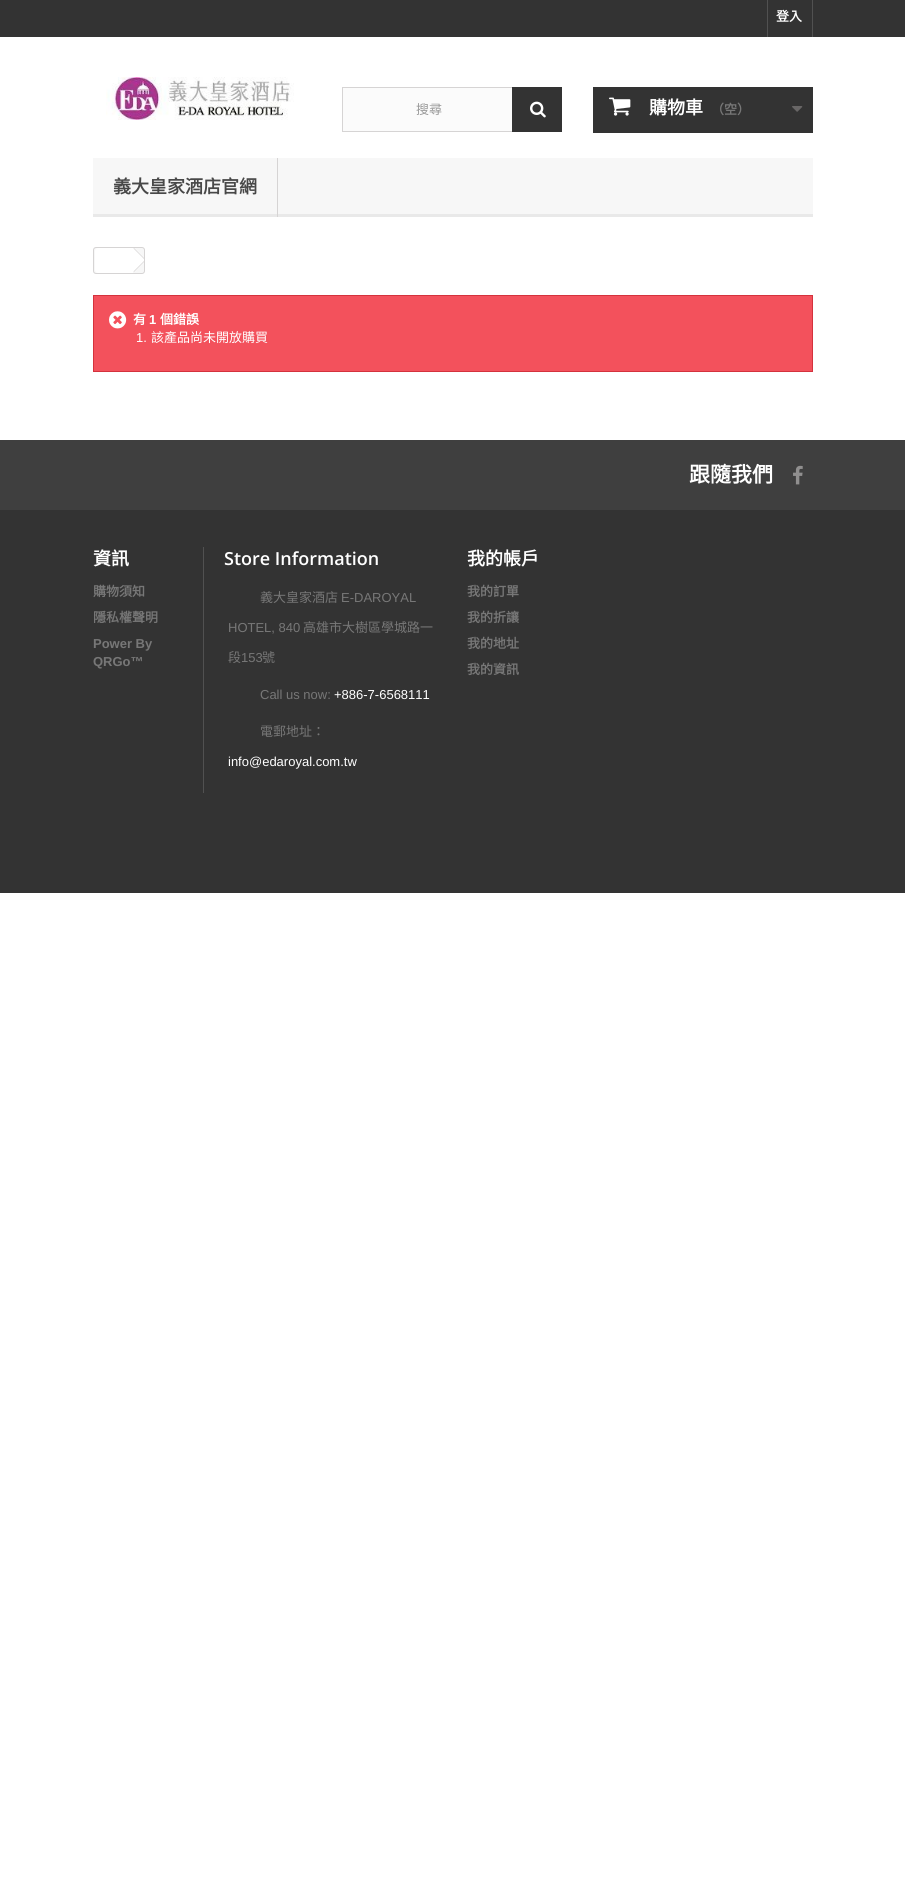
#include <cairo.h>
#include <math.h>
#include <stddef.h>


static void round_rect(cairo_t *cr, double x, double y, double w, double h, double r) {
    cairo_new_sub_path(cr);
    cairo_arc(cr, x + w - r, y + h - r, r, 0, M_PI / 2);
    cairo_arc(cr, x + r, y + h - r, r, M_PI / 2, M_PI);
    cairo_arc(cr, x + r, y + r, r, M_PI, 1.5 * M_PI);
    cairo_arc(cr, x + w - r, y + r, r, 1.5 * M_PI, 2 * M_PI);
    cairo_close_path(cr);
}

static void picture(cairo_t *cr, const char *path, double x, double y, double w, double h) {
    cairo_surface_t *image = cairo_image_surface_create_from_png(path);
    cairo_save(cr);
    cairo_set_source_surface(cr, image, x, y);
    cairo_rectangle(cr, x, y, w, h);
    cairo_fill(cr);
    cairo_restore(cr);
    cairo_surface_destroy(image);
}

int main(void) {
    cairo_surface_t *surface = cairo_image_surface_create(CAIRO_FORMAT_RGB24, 905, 1878);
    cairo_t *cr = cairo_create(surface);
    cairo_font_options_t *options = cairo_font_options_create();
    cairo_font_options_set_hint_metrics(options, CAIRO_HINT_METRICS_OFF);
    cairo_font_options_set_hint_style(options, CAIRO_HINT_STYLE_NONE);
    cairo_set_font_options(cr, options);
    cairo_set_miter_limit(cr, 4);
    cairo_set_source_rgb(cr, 1, 1, 1);
    cairo_paint(cr);
    cairo_set_source_rgb(cr, 0.2, 0.2, 0.2);
    cairo_rectangle(cr, 0, 0, 905, 37);
    cairo_fill(cr);
    cairo_set_source_rgb(cr, 0.318, 0.318, 0.318);
    cairo_rectangle(cr, 812, 0, 1, 37);
    cairo_fill(cr);
    cairo_rectangle(cr, 767, 0, 1, 37);
    cairo_fill(cr);
    cairo_select_font_face(cr, "Noto Sans CJK TC", CAIRO_FONT_SLANT_NORMAL, CAIRO_FONT_WEIGHT_BOLD);
    cairo_set_font_size(cr, 13);
    cairo_set_source_rgb(cr, 1, 1, 1);
    cairo_move_to(cr, 776, 21);
    cairo_show_text(cr, "登入");
    picture(cr, "img1.png", 106, 77, 188, 43);
    cairo_set_source_rgb(cr, 0.984, 0.984, 0.984);
    cairo_rectangle(cr, 343, 88, 169, 43);
    cairo_fill(cr);
    cairo_rectangle(cr, 342.5, 87.5, 219, 44);
    cairo_set_source_rgb(cr, 0.839, 0.831, 0.831);
    cairo_set_line_width(cr, 1);
    cairo_stroke(cr);
    cairo_select_font_face(cr, "Noto Sans CJK TC", CAIRO_FONT_SLANT_NORMAL, CAIRO_FONT_WEIGHT_NORMAL);
    cairo_set_source_rgb(cr, 0.6, 0.6, 0.6);
    cairo_move_to(cr, 416, 114);
    cairo_show_text(cr, "搜尋");
    cairo_set_source_rgb(cr, 0.2, 0.2, 0.2);
    cairo_rectangle(cr, 512, 87, 50, 45);
    cairo_fill(cr);
    picture(cr, "img2.png", 530, 101, 16, 17);
    cairo_rectangle(cr, 593, 87, 220, 46);
    cairo_fill(cr);
    picture(cr, "img3.png", 609, 97, 22, 19);
    cairo_select_font_face(cr, "Noto Sans CJK TC", CAIRO_FONT_SLANT_NORMAL, CAIRO_FONT_WEIGHT_BOLD);
    cairo_set_font_size(cr, 18);
    cairo_set_source_rgb(cr, 1, 1, 1);
    cairo_move_to(cr, 649, 114);
    cairo_show_text(cr, "購物車");
    cairo_set_font_size(cr, 13);
    cairo_set_source_rgb(cr, 0.467, 0.467, 0.467);
    cairo_move_to(cr, 711, 114);
    cairo_show_text(cr, "（空）");
    picture(cr, "img4.png", 792, 106, 11, 6);
    cairo_set_source_rgb(cr, 0.965, 0.965, 0.965);
    cairo_rectangle(cr, 93, 158, 720, 56);
    cairo_fill(cr);
    cairo_set_source_rgb(cr, 0.914, 0.914, 0.914);
    cairo_rectangle(cr, 93, 214, 720, 3);
    cairo_fill(cr);
    cairo_set_source_rgb(cr, 0.839, 0.831, 0.831);
    cairo_rectangle(cr, 277, 158, 1, 59);
    cairo_fill(cr);
    cairo_set_font_size(cr, 18);
    cairo_set_source_rgb(cr, 0.282, 0.282, 0.282);
    cairo_move_to(cr, 113, 193);
    cairo_show_text(cr, "義大皇家酒店官網");
    cairo_set_source_rgb(cr, 0.965, 0.965, 0.965);
    round_rect(cr, 93.5, 247.5, 51, 26, 2.5);
    cairo_fill_preserve(cr);
    cairo_set_source_rgb(cr, 0.839, 0.831, 0.831);
    cairo_stroke(cr);
    cairo_set_source_rgb(cr, 1, 1, 1);
    cairo_new_path(cr);
    cairo_move_to(cr, 98, 248);
    cairo_line_to(cr, 133, 248);
    cairo_line_to(cr, 133, 273);
    cairo_line_to(cr, 98, 273);
    cairo_curve_to(cr, 96.5, 273, 95, 271.5, 95, 270);
    cairo_line_to(cr, 95, 251);
    cairo_curve_to(cr, 95, 249.5, 96.5, 248, 98, 248);
    cairo_close_path(cr);
    cairo_fill(cr);
    cairo_new_path(cr);
    cairo_move_to(cr, 135, 248.5);
    cairo_line_to(cr, 144, 257.5);
    cairo_line_to(cr, 144, 262.5);
    cairo_line_to(cr, 135, 271.5);
    cairo_curve_to(cr, 134, 272, 133, 272, 132, 271.5);
    cairo_line_to(cr, 122, 261.5);
    cairo_curve_to(cr, 121.5, 260.5, 121.5, 259.5, 122, 258.5);
    cairo_line_to(cr, 132, 248.5);
    cairo_curve_to(cr, 133, 248, 134, 248, 135, 248.5);
    cairo_close_path(cr);
    cairo_fill(cr);
    cairo_set_source_rgb(cr, 0.839, 0.831, 0.831);
    cairo_new_path(cr);
    cairo_move_to(cr, 134, 248);
    cairo_line_to(cr, 144, 258);
    cairo_line_to(cr, 144, 259);
    cairo_line_to(cr, 133.5, 248.5);
    cairo_close_path(cr);
    cairo_move_to(cr, 144, 261);
    cairo_line_to(cr, 144, 262);
    cairo_line_to(cr, 134, 272);
    cairo_line_to(cr, 133.5, 271.5);
    cairo_close_path(cr);
    cairo_fill(cr);
    cairo_set_source_rgb(cr, 0.953, 0.318, 0.361);
    cairo_rectangle(cr, 93.5, 295.5, 719, 76);
    cairo_fill_preserve(cr);
    cairo_set_source_rgb(cr, 0.831, 0.196, 0.239);
    cairo_stroke(cr);
    picture(cr, "img5.png", 109, 311, 18, 18);
    cairo_set_font_size(cr, 13);
    cairo_set_source_rgb(cr, 1, 1, 1);
    cairo_move_to(cr, 133, 324);
    cairo_show_text(cr, "有");
    cairo_select_font_face(cr, "Liberation Sans", CAIRO_FONT_SLANT_NORMAL, CAIRO_FONT_WEIGHT_BOLD);
    cairo_move_to(cr, 149, 324);
    cairo_show_text(cr, "1");
    cairo_select_font_face(cr, "Noto Sans CJK TC", CAIRO_FONT_SLANT_NORMAL, CAIRO_FONT_WEIGHT_BOLD);
    cairo_move_to(cr, 160, 324);
    cairo_show_text(cr, "個錯誤");
    cairo_select_font_face(cr, "Liberation Sans", CAIRO_FONT_SLANT_NORMAL, CAIRO_FONT_WEIGHT_NORMAL);
    cairo_move_to(cr, 136, 342);
    cairo_show_text(cr, "1.");
    cairo_select_font_face(cr, "Noto Sans CJK TC", CAIRO_FONT_SLANT_NORMAL, CAIRO_FONT_WEIGHT_NORMAL);
    cairo_move_to(cr, 151, 342);
    cairo_show_text(cr, "該產品尚未開放購買");
    cairo_set_source_rgb(cr, 0.2, 0.2, 0.2);
    cairo_rectangle(cr, 0, 510, 905, 383);
    cairo_fill(cr);
    cairo_set_source_rgb(cr, 0.247, 0.247, 0.247);
    cairo_rectangle(cr, 0, 440, 905, 70);
    cairo_fill(cr);
    cairo_select_font_face(cr, "Noto Sans CJK TC", CAIRO_FONT_SLANT_NORMAL, CAIRO_FONT_WEIGHT_BOLD);
    cairo_set_font_size(cr, 21);
    cairo_set_source_rgb(cr, 1, 1, 1);
    cairo_move_to(cr, 689, 482);
    cairo_show_text(cr, "跟隨我們");
    picture(cr, "img6.png", 793, 465, 10, 20);
    cairo_set_font_size(cr, 18);
    cairo_move_to(cr, 93, 565);
    cairo_show_text(cr, "資訊");
    cairo_set_font_size(cr, 13);
    cairo_set_source_rgb(cr, 0.467, 0.467, 0.467);
    cairo_move_to(cr, 93, 596);
    cairo_show_text(cr, "購物須知");
    cairo_move_to(cr, 93, 622);
    cairo_show_text(cr, "隱私權聲明");
    cairo_select_font_face(cr, "Liberation Sans", CAIRO_FONT_SLANT_NORMAL, CAIRO_FONT_WEIGHT_BOLD);
    cairo_move_to(cr, 93, 648);
    cairo_show_text(cr, "Power By");
    cairo_move_to(cr, 93, 666);
    cairo_show_text(cr, "QRGo™");
    cairo_set_source_rgb(cr, 0.318, 0.318, 0.318);
    cairo_rectangle(cr, 203, 547, 1, 246);
    cairo_fill(cr);
    cairo_select_font_face(cr, "Open Sans SemiBold", CAIRO_FONT_SLANT_NORMAL, CAIRO_FONT_WEIGHT_NORMAL);
    cairo_set_font_size(cr, 18);
    cairo_set_source_rgb(cr, 1, 1, 1);
    cairo_move_to(cr, 224, 565);
    cairo_show_text(cr, "Store Information");
    cairo_select_font_face(cr, "Noto Sans CJK TC", CAIRO_FONT_SLANT_NORMAL, CAIRO_FONT_WEIGHT_NORMAL);
    cairo_set_font_size(cr, 13);
    cairo_set_source_rgb(cr, 0.467, 0.467, 0.467);
    cairo_move_to(cr, 260, 602);
    cairo_show_text(cr, "義大皇家酒店");
    cairo_select_font_face(cr, "Liberation Sans", CAIRO_FONT_SLANT_NORMAL, CAIRO_FONT_WEIGHT_NORMAL);
    cairo_move_to(cr, 341, 602);
    cairo_show_text(cr, "E-DAROYAL");
    cairo_move_to(cr, 228, 632);
    cairo_show_text(cr, "HOTEL, 840");
    cairo_select_font_face(cr, "Noto Sans CJK TC", CAIRO_FONT_SLANT_NORMAL, CAIRO_FONT_WEIGHT_NORMAL);
    cairo_move_to(cr, 303, 632);
    cairo_show_text(cr, "高雄市大樹區學城路一");
    cairo_move_to(cr, 228, 662);
    cairo_show_text(cr, "段");
    cairo_select_font_face(cr, "Liberation Sans", CAIRO_FONT_SLANT_NORMAL, CAIRO_FONT_WEIGHT_NORMAL);
    cairo_move_to(cr, 241, 662);
    cairo_show_text(cr, "153");
    cairo_select_font_face(cr, "Noto Sans CJK TC", CAIRO_FONT_SLANT_NORMAL, CAIRO_FONT_WEIGHT_NORMAL);
    cairo_move_to(cr, 262, 662);
    cairo_show_text(cr, "號");
    cairo_select_font_face(cr, "Liberation Sans", CAIRO_FONT_SLANT_NORMAL, CAIRO_FONT_WEIGHT_NORMAL);
    cairo_move_to(cr, 260, 699);
    cairo_show_text(cr, "Call us now:");
    cairo_set_source_rgb(cr, 1, 1, 1);
    cairo_move_to(cr, 334, 699);
    cairo_show_text(cr, "+886-7-6568111");
    cairo_select_font_face(cr, "Noto Sans CJK TC", CAIRO_FONT_SLANT_NORMAL, CAIRO_FONT_WEIGHT_NORMAL);
    cairo_set_source_rgb(cr, 0.467, 0.467, 0.467);
    cairo_move_to(cr, 260, 736);
    cairo_show_text(cr, "電郵地址：");
    cairo_select_font_face(cr, "Liberation Sans", CAIRO_FONT_SLANT_NORMAL, CAIRO_FONT_WEIGHT_NORMAL);
    cairo_set_source_rgb(cr, 1, 1, 1);
    cairo_move_to(cr, 228, 766);
    cairo_show_text(cr, "info@edaroyal.com.tw");
    cairo_select_font_face(cr, "Noto Sans CJK TC", CAIRO_FONT_SLANT_NORMAL, CAIRO_FONT_WEIGHT_BOLD);
    cairo_set_font_size(cr, 18);
    cairo_move_to(cr, 467, 565);
    cairo_show_text(cr, "我的帳戶");
    cairo_set_font_size(cr, 13);
    cairo_set_source_rgb(cr, 0.467, 0.467, 0.467);
    cairo_move_to(cr, 467, 596);
    cairo_show_text(cr, "我的訂單");
    cairo_move_to(cr, 467, 622);
    cairo_show_text(cr, "我的折讓");
    cairo_move_to(cr, 467, 648);
    cairo_show_text(cr, "我的地址");
    cairo_move_to(cr, 467, 674);
    cairo_show_text(cr, "我的資訊");
    cairo_surface_write_to_png(surface, "page.png");
    cairo_font_options_destroy(options);
    cairo_destroy(cr);
    cairo_surface_destroy(surface);
    return 0;
}
